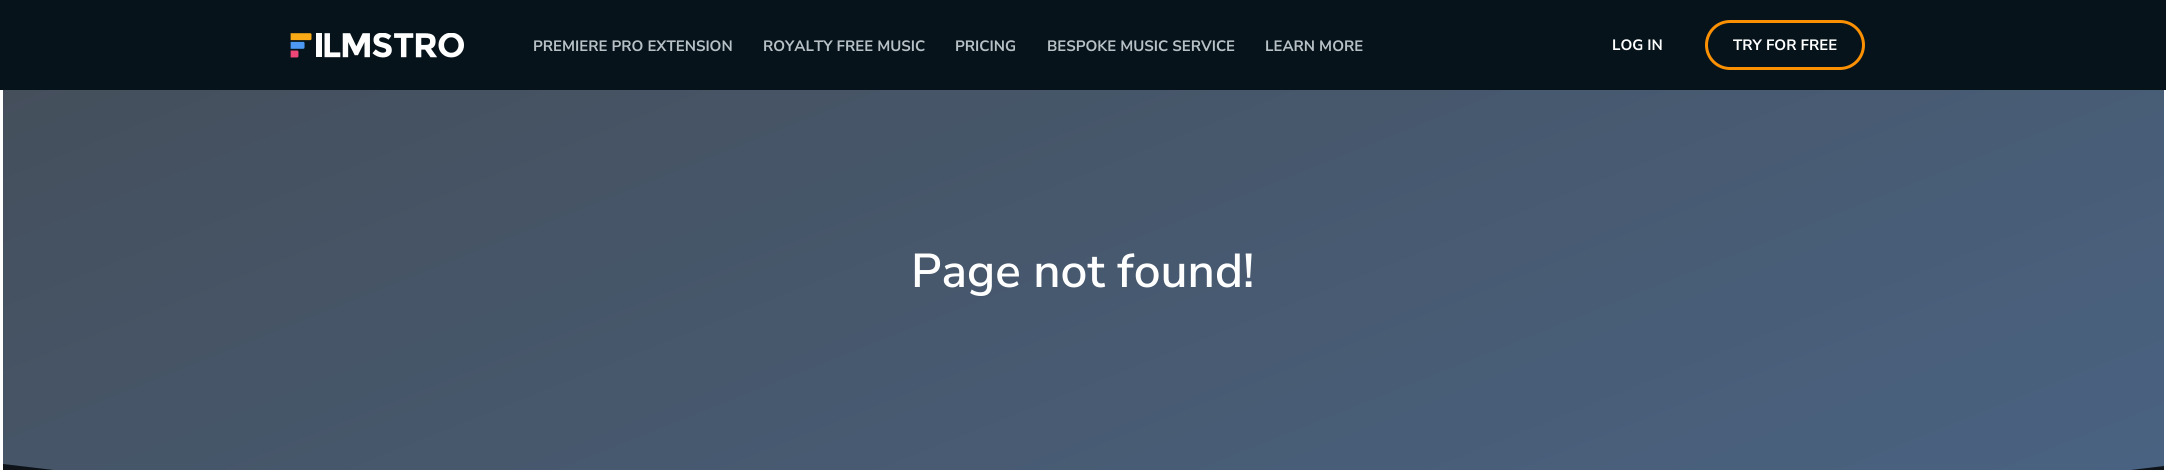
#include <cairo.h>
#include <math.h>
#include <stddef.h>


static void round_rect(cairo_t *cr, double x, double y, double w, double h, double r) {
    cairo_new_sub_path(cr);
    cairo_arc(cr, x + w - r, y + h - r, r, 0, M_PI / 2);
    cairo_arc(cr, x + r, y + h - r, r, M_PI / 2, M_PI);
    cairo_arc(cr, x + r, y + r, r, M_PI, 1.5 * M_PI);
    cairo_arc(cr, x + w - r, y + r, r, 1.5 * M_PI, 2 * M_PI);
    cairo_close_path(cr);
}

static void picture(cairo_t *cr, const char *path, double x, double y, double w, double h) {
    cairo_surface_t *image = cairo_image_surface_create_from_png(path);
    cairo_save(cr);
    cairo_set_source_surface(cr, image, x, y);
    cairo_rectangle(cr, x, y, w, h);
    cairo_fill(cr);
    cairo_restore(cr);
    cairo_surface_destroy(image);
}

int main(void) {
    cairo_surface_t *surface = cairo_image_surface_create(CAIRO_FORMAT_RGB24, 2166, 470);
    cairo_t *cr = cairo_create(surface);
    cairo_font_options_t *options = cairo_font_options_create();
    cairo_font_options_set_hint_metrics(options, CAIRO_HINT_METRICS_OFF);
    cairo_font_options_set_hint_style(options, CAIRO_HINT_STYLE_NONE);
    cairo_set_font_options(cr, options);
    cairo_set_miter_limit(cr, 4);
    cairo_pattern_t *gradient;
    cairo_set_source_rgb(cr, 1, 1, 1);
    cairo_paint(cr);
    cairo_set_source_rgb(cr, 0.027, 0.075, 0.106);
    cairo_rectangle(cr, 0, 0, 2166, 90);
    cairo_fill(cr);
    picture(cr, "img1.png", 290, 33, 174, 25);
    cairo_select_font_face(cr, "Nunito Sans", CAIRO_FONT_SLANT_NORMAL, CAIRO_FONT_WEIGHT_BOLD);
    cairo_set_font_size(cr, 15);
    cairo_set_source_rgb(cr, 0.714, 0.753, 0.773);
    cairo_move_to(cr, 533, 51);
    cairo_show_text(cr, "PREMIERE PRO EXTENSION");
    cairo_move_to(cr, 763, 51);
    cairo_show_text(cr, "ROYALTY FREE MUSIC");
    cairo_move_to(cr, 955, 51);
    cairo_show_text(cr, "PRICING");
    cairo_move_to(cr, 1047, 51);
    cairo_show_text(cr, "BESPOKE MUSIC SERVICE");
    cairo_move_to(cr, 1265, 51);
    cairo_show_text(cr, "LEARN MORE");
    cairo_set_source_rgb(cr, 1, 1, 1);
    cairo_move_to(cr, 1612, 50);
    cairo_show_text(cr, "LOG IN");
    round_rect(cr, 1706.5, 21.5, 157, 47, 23.5);
    cairo_set_source_rgb(cr, 0.984, 0.569, 0.008);
    cairo_set_line_width(cr, 3);
    cairo_stroke(cr);
    cairo_set_source_rgb(cr, 1, 1, 1);
    cairo_move_to(cr, 1733, 50);
    cairo_show_text(cr, "TRY FOR FREE");
    gradient = cairo_pattern_create_linear(1.4, -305, 598, 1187);
    cairo_pattern_add_color_stop_rgba(gradient, 0, 0.263, 0.286, 0.314, 1);
    cairo_pattern_add_color_stop_rgba(gradient, 1, 0.29, 0.392, 0.518, 1);
    cairo_set_source(cr, gradient);
    cairo_pattern_destroy(gradient);
    cairo_rectangle(cr, 3, 90, 2161, 380);
    cairo_fill(cr);
    cairo_set_source_rgb(cr, 0.051, 0.075, 0.098);
    cairo_new_path(cr);
    cairo_move_to(cr, 3, 464);
    cairo_line_to(cr, 3, 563);
    cairo_line_to(cr, 2164, 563);
    cairo_line_to(cr, 2164, 466);
    cairo_curve_to(cr, 1688, 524, 1329, 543, 1092, 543);
    cairo_curve_to(cr, 854, 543, 478, 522, 3, 464);
    cairo_close_path(cr);
    cairo_fill(cr);
    cairo_select_font_face(cr, "Nunito Sans SemiBold", CAIRO_FONT_SLANT_NORMAL, CAIRO_FONT_WEIGHT_NORMAL);
    cairo_set_font_size(cr, 47.5);
    cairo_set_source_rgb(cr, 1, 1, 1);
    cairo_move_to(cr, 911, 287);
    cairo_show_text(cr, "Page not found!");
    cairo_surface_write_to_png(surface, "page.png");
    cairo_font_options_destroy(options);
    cairo_destroy(cr);
    cairo_surface_destroy(surface);
    return 0;
}
